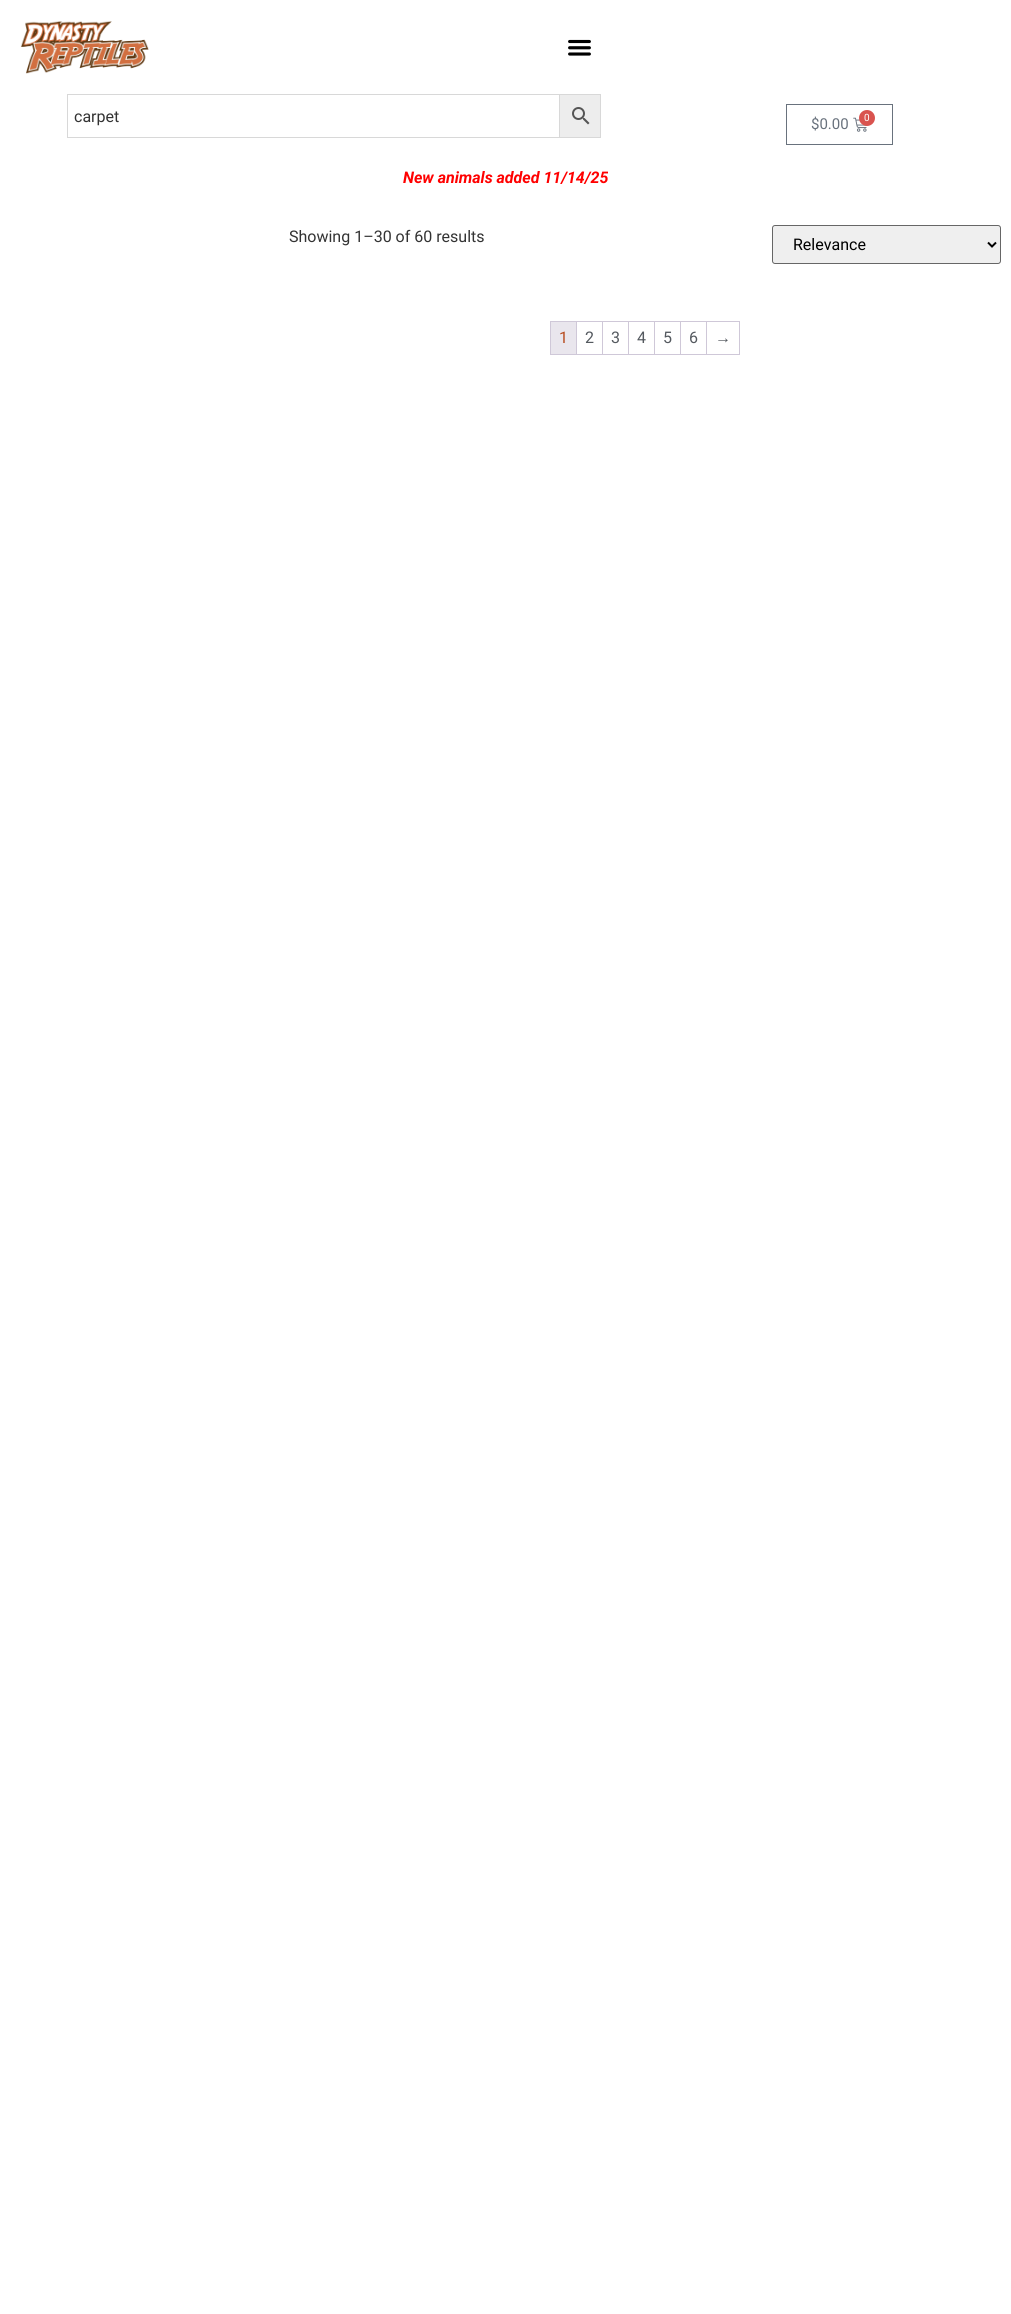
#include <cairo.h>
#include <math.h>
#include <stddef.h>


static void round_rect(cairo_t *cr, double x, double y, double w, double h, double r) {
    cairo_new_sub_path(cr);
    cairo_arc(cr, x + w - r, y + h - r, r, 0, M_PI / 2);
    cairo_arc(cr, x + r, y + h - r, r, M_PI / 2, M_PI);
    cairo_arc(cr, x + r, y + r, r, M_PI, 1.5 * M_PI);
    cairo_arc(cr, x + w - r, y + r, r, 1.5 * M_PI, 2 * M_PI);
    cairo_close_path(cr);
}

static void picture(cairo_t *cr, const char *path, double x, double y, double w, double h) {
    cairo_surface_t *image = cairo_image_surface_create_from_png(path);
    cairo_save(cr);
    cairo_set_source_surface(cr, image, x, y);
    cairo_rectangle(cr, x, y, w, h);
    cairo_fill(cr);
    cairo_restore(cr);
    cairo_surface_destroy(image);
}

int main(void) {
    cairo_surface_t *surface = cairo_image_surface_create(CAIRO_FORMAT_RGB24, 1011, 2314);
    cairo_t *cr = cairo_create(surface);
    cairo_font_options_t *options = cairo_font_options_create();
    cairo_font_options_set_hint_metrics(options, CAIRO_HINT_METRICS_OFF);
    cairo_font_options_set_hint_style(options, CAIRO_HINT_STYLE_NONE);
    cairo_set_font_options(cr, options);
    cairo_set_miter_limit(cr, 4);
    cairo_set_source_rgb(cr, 1, 1, 1);
    cairo_paint(cr);
    picture(cr, "img1.png", 20, 21, 129, 53);
    picture(cr, "img2.png", 568, 39, 23, 17);
    cairo_set_source_rgb(cr, 0.929, 0.929, 0.929);
    cairo_rectangle(cr, 559.5, 94.5, 41, 43);
    cairo_fill_preserve(cr);
    cairo_set_source_rgb(cr, 0.847, 0.847, 0.847);
    cairo_set_line_width(cr, 1);
    cairo_stroke(cr);
    cairo_rectangle(cr, 67.5, 94.5, 492, 43);
    cairo_stroke(cr);
    cairo_select_font_face(cr, "Roboto", CAIRO_FONT_SLANT_NORMAL, CAIRO_FONT_WEIGHT_NORMAL);
    cairo_set_font_size(cr, 16);
    cairo_set_source_rgb(cr, 0.2, 0.2, 0.2);
    cairo_move_to(cr, 74, 122);
    cairo_show_text(cr, "carpet");
    picture(cr, "img3.png", 572, 107, 18, 18);
    cairo_rectangle(cr, 786.5, 104.5, 106, 40);
    cairo_set_source_rgb(cr, 0.412, 0.447, 0.49);
    cairo_stroke(cr);
    cairo_set_font_size(cr, 15);
    cairo_move_to(cr, 811, 129);
    cairo_show_text(cr, "$0.00");
    picture(cr, "img4.png", 853, 117, 14, 15);
    cairo_set_source_rgb(cr, 0.851, 0.325, 0.31);
    cairo_arc(cr, 867, 118, 8, 0, 2 * M_PI);
    cairo_fill(cr);
    cairo_set_font_size(cr, 10);
    cairo_set_source_rgb(cr, 1, 1, 1);
    cairo_move_to(cr, 864, 121);
    cairo_show_text(cr, "0");
    cairo_select_font_face(cr, "Roboto", CAIRO_FONT_SLANT_ITALIC, CAIRO_FONT_WEIGHT_BOLD);
    cairo_set_font_size(cr, 16);
    cairo_set_source_rgb(cr, 1, 0, 0);
    cairo_move_to(cr, 403, 183);
    cairo_show_text(cr, "New animals added 11/14/25");
    cairo_select_font_face(cr, "Roboto", CAIRO_FONT_SLANT_NORMAL, CAIRO_FONT_WEIGHT_NORMAL);
    cairo_set_source_rgb(cr, 0.2, 0.2, 0.2);
    cairo_move_to(cr, 289, 242);
    cairo_show_text(cr, "Showing 1–30 of 60 results");
    cairo_set_source_rgb(cr, 0.937, 0.937, 0.937);
    round_rect(cr, 772.5, 225.5, 228, 38, 2.5);
    cairo_fill_preserve(cr);
    cairo_set_source_rgb(cr, 0.4, 0.4, 0.4);
    cairo_stroke(cr);
    cairo_new_path(cr);
    cairo_move_to(cr, 988, 242.5);
    cairo_line_to(cr, 992, 246.5);
    cairo_line_to(cr, 996, 242.5);
    cairo_set_source_rgb(cr, 0, 0, 0);
    cairo_set_line_width(cr, 2);
    cairo_stroke(cr);
    cairo_move_to(cr, 793, 250);
    cairo_show_text(cr, "Relevance");
    cairo_set_source_rgb(cr, 0.812, 0.784, 0.847);
    cairo_rectangle(cr, 550, 321, 190, 1);
    cairo_fill(cr);
    cairo_rectangle(cr, 550, 354, 190, 1);
    cairo_fill(cr);
    cairo_rectangle(cr, 550, 321, 1, 34);
    cairo_fill(cr);
    cairo_rectangle(cr, 576, 322, 1, 32);
    cairo_fill(cr);
    cairo_set_source_rgb(cr, 0.914, 0.902, 0.929);
    cairo_rectangle(cr, 551, 322, 25, 32);
    cairo_fill(cr);
    cairo_set_source_rgb(cr, 0.718, 0.298, 0.122);
    cairo_move_to(cr, 559, 343);
    cairo_show_text(cr, "1");
    cairo_set_source_rgb(cr, 0.812, 0.784, 0.847);
    cairo_rectangle(cr, 602, 322, 1, 32);
    cairo_fill(cr);
    cairo_set_source_rgb(cr, 0.329, 0.349, 0.373);
    cairo_move_to(cr, 585, 343);
    cairo_show_text(cr, "2");
    cairo_set_source_rgb(cr, 0.812, 0.784, 0.847);
    cairo_rectangle(cr, 628, 322, 1, 32);
    cairo_fill(cr);
    cairo_set_source_rgb(cr, 0.329, 0.349, 0.373);
    cairo_move_to(cr, 611, 343);
    cairo_show_text(cr, "3");
    cairo_set_source_rgb(cr, 0.812, 0.784, 0.847);
    cairo_rectangle(cr, 654, 322, 1, 32);
    cairo_fill(cr);
    cairo_set_source_rgb(cr, 0.329, 0.349, 0.373);
    cairo_move_to(cr, 637, 343);
    cairo_show_text(cr, "4");
    cairo_set_source_rgb(cr, 0.812, 0.784, 0.847);
    cairo_rectangle(cr, 680, 322, 1, 32);
    cairo_fill(cr);
    cairo_set_source_rgb(cr, 0.329, 0.349, 0.373);
    cairo_move_to(cr, 663, 343);
    cairo_show_text(cr, "5");
    cairo_set_source_rgb(cr, 0.812, 0.784, 0.847);
    cairo_rectangle(cr, 706, 322, 1, 32);
    cairo_fill(cr);
    cairo_set_source_rgb(cr, 0.329, 0.349, 0.373);
    cairo_move_to(cr, 689, 343);
    cairo_show_text(cr, "6");
    cairo_set_source_rgb(cr, 0.812, 0.784, 0.847);
    cairo_rectangle(cr, 739, 322, 1, 32);
    cairo_fill(cr);
    cairo_select_font_face(cr, "Liberation Sans", CAIRO_FONT_SLANT_NORMAL, CAIRO_FONT_WEIGHT_NORMAL);
    cairo_set_source_rgb(cr, 0.329, 0.349, 0.373);
    cairo_move_to(cr, 715, 343);
    cairo_show_text(cr, "→");
    cairo_surface_write_to_png(surface, "page.png");
    cairo_font_options_destroy(options);
    cairo_destroy(cr);
    cairo_surface_destroy(surface);
    return 0;
}
